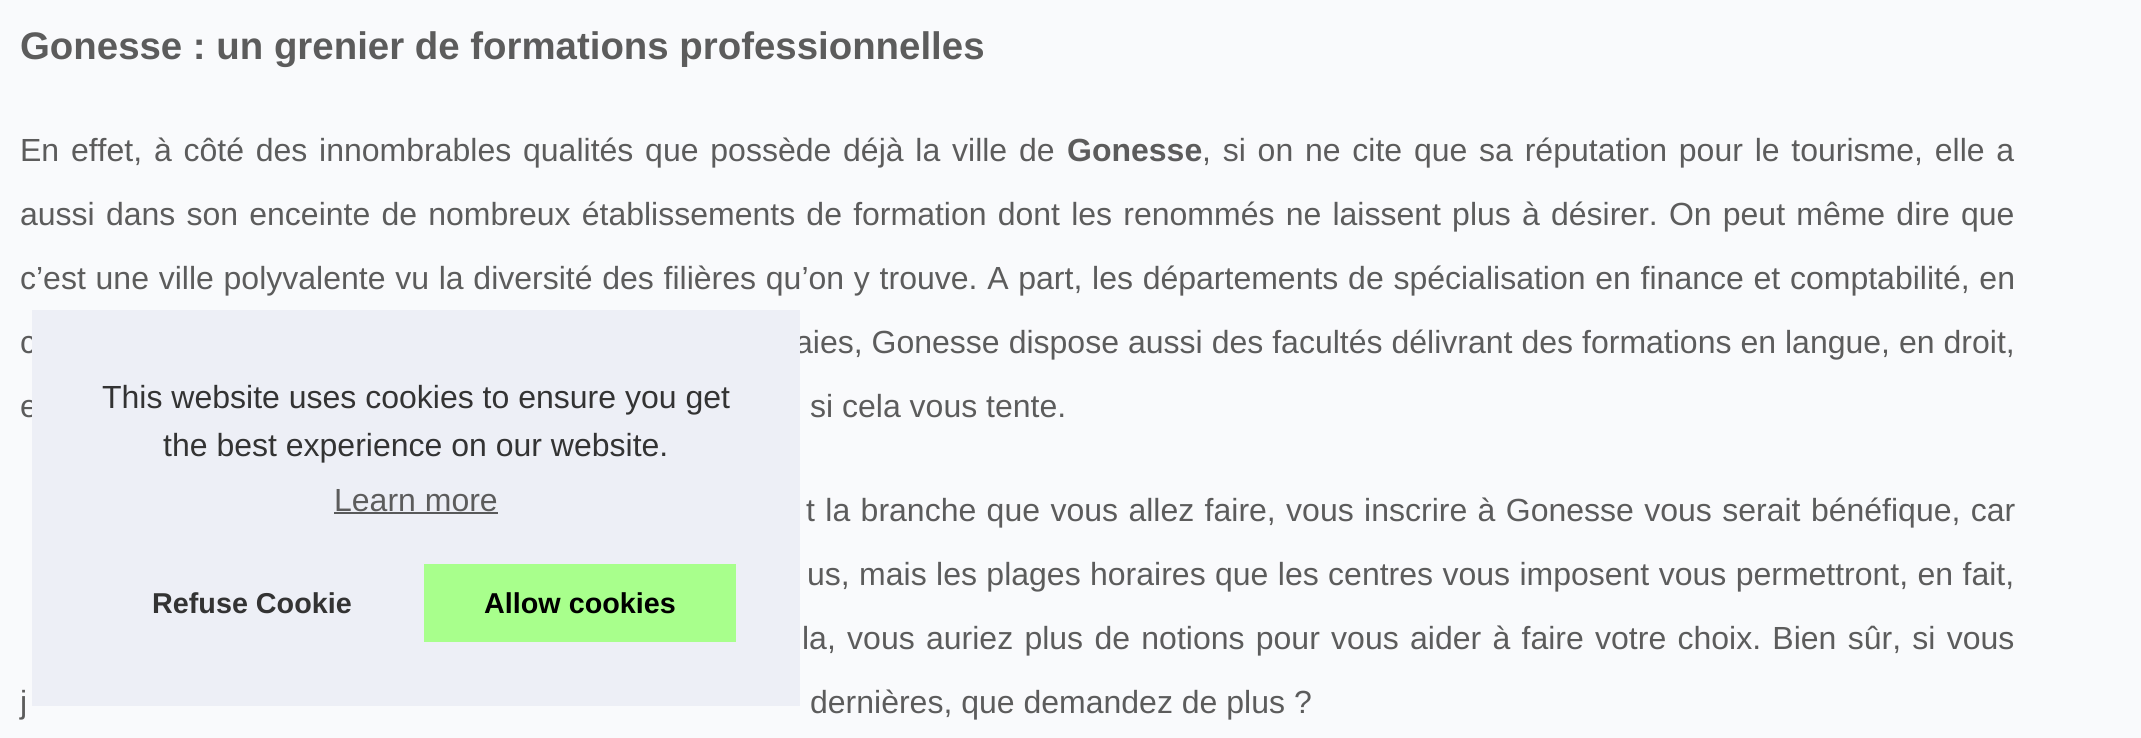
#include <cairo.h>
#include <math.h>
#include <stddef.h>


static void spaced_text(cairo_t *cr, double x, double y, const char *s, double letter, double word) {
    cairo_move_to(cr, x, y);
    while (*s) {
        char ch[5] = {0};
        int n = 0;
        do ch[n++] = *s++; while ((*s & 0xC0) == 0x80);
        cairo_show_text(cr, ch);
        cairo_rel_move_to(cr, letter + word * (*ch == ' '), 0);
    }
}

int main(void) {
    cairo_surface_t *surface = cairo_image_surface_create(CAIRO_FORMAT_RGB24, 2141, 738);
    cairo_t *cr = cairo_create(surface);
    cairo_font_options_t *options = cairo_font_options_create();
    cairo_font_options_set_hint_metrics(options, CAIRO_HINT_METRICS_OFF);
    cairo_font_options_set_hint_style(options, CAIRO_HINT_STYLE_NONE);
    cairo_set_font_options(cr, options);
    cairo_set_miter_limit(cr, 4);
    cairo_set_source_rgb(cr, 0.976, 0.98, 0.988);
    cairo_paint(cr);
    cairo_select_font_face(cr, "Liberation Sans", CAIRO_FONT_SLANT_NORMAL, CAIRO_FONT_WEIGHT_BOLD);
    cairo_set_font_size(cr, 38.4);
    cairo_set_source_rgb(cr, 0.361, 0.361, 0.361);
    cairo_move_to(cr, 20, 59);
    cairo_show_text(cr, "Gonesse : un grenier de formations professionnelles");
    cairo_select_font_face(cr, "Liberation Sans", CAIRO_FONT_SLANT_NORMAL, CAIRO_FONT_WEIGHT_NORMAL);
    cairo_set_font_size(cr, 32);
    spaced_text(cr, 20, 161, "En effet, à côté des innombrables qualités que possède déjà la ville de", 0, 2.9);
    cairo_select_font_face(cr, "Liberation Sans", CAIRO_FONT_SLANT_NORMAL, CAIRO_FONT_WEIGHT_BOLD);
    cairo_move_to(cr, 1067, 161);
    cairo_show_text(cr, "Gonesse");
    cairo_select_font_face(cr, "Liberation Sans", CAIRO_FONT_SLANT_NORMAL, CAIRO_FONT_WEIGHT_NORMAL);
    spaced_text(cr, 1202, 161, ", si on ne cite que sa réputation pour le tourisme, elle a", 0, 2.9);
    spaced_text(cr, 20, 225, "aussi dans son enceinte de nombreux établissements de formation dont les renommés ne laissent plus à désirer. On peut même dire que", 0, 2.3);
    spaced_text(cr, 20, 289, "c’est une ville polyvalente vu la diversité des filières qu’on y trouve. A part, les départements de spécialisation en finance et comptabilité, en", 0, 0.85);
    spaced_text(cr, 20, 353, "c", 0, 0.1);
    spaced_text(cr, 795, 353, "aies, Gonesse dispose aussi des facultés délivrant des formations en langue, en droit,", 0, 0.1);
    cairo_move_to(cr, 20, 417);
    cairo_show_text(cr, "e");
    cairo_move_to(cr, 810, 417);
    cairo_show_text(cr, "si cela vous tente.");
    spaced_text(cr, 806, 521, "t la branche que vous allez faire, vous inscrire à Gonesse vous serait bénéfique, car", 0, 1.5);
    spaced_text(cr, 807, 585, "us, mais les plages horaires que les centres vous imposent vous permettront, en fait,", 0, 0.5);
    spaced_text(cr, 802, 649, "la, vous auriez plus de notions pour vous aider à faire votre choix. Bien sûr, si vous", 0, 2.4);
    cairo_move_to(cr, 20, 713);
    cairo_show_text(cr, "j");
    cairo_move_to(cr, 810, 713);
    cairo_show_text(cr, "dernières, que demandez de plus ?");
    cairo_set_source_rgb(cr, 0.929, 0.937, 0.961);
    cairo_rectangle(cr, 32, 310, 768, 396);
    cairo_fill(cr);
    cairo_set_source_rgb(cr, 0.2, 0.2, 0.2);
    cairo_move_to(cr, 102, 408);
    cairo_show_text(cr, "This website uses cookies to ensure you get");
    cairo_move_to(cr, 163, 456);
    cairo_show_text(cr, "the best experience on our website.");
    cairo_set_source_rgb(cr, 0.361, 0.361, 0.361);
    cairo_move_to(cr, 334, 511);
    cairo_show_text(cr, "Learn more");
    cairo_set_source_rgb(cr, 0.345, 0.349, 0.353);
    cairo_rectangle(cr, 334, 512, 164, 2);
    cairo_fill(cr);
    cairo_select_font_face(cr, "Liberation Sans", CAIRO_FONT_SLANT_NORMAL, CAIRO_FONT_WEIGHT_BOLD);
    cairo_set_font_size(cr, 28.75);
    cairo_set_source_rgb(cr, 0.2, 0.2, 0.2);
    cairo_move_to(cr, 152, 613);
    cairo_show_text(cr, "Refuse Cookie");
    cairo_set_source_rgb(cr, 0.659, 1, 0.549);
    cairo_rectangle(cr, 424, 564, 312, 78);
    cairo_fill(cr);
    cairo_set_source_rgb(cr, 0, 0, 0);
    cairo_move_to(cr, 484, 613);
    cairo_show_text(cr, "Allow cookies");
    cairo_surface_write_to_png(surface, "page.png");
    cairo_font_options_destroy(options);
    cairo_destroy(cr);
    cairo_surface_destroy(surface);
    return 0;
}
